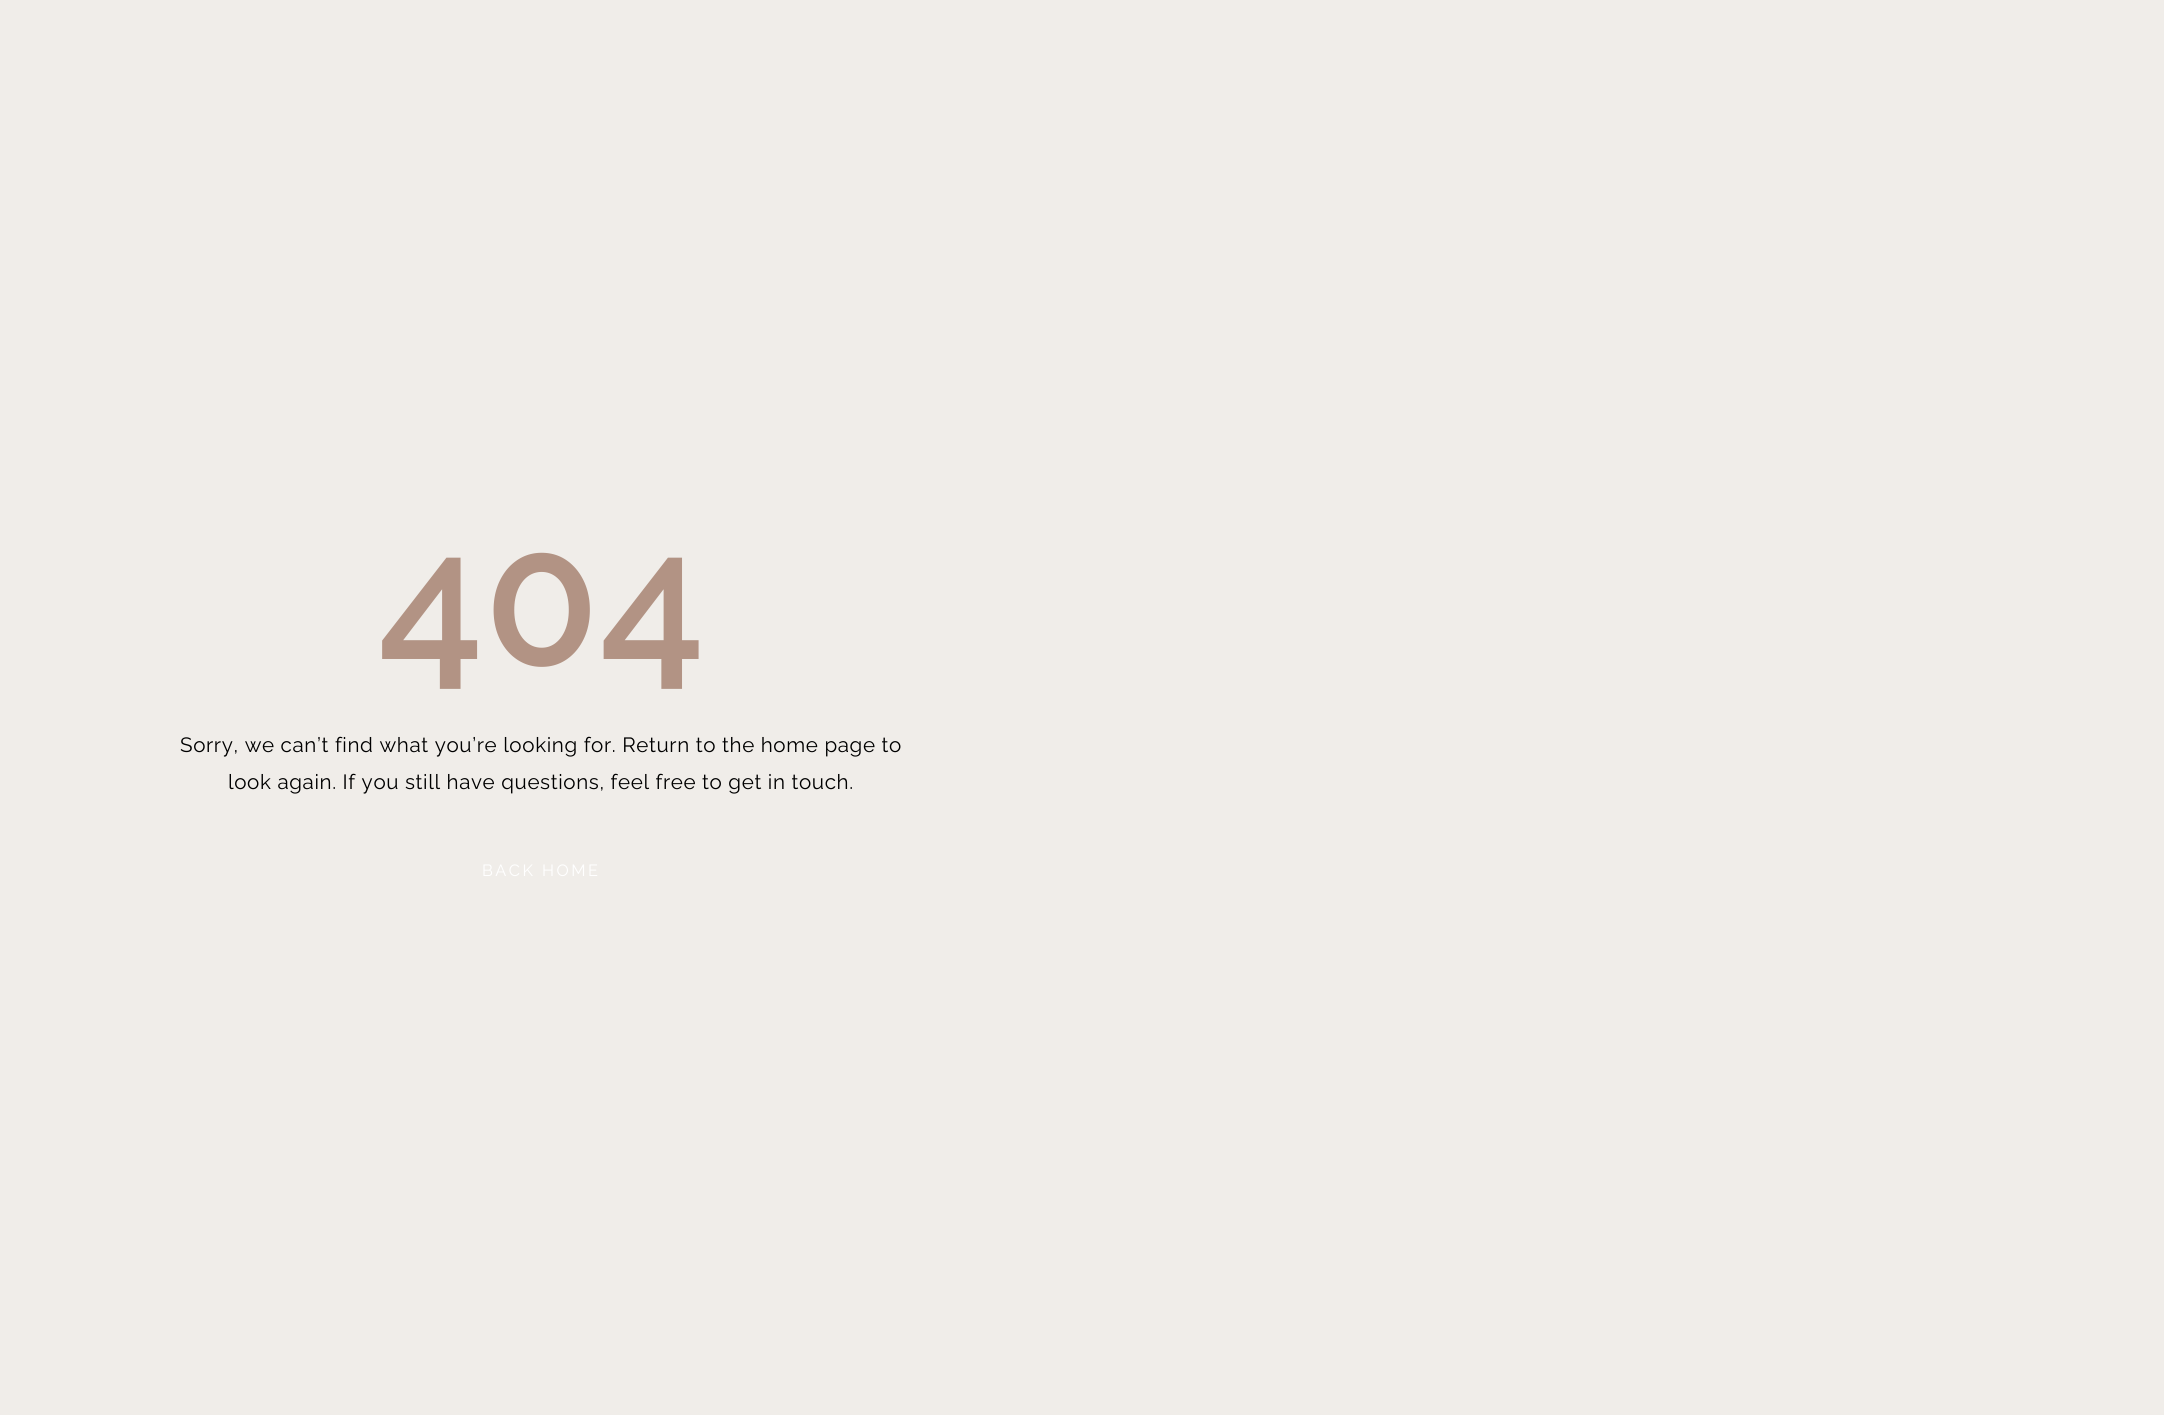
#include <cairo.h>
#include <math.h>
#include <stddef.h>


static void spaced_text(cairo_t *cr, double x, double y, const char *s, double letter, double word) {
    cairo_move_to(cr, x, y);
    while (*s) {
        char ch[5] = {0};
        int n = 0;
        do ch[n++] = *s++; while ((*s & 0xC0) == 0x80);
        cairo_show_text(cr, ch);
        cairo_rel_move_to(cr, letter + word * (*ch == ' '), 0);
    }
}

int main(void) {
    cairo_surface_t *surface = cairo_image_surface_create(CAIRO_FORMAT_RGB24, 2164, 1415);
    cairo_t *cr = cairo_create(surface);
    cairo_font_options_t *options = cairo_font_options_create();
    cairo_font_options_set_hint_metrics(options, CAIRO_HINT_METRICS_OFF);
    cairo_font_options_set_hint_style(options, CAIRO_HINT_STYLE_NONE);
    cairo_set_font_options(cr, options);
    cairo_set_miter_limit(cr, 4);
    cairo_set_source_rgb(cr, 0.941, 0.929, 0.914);
    cairo_paint(cr);
    cairo_select_font_face(cr, "Raleway SemiBold", CAIRO_FONT_SLANT_NORMAL, CAIRO_FONT_WEIGHT_NORMAL);
    cairo_set_font_size(cr, 188);
    cairo_set_source_rgb(cr, 0.698, 0.576, 0.518);
    cairo_move_to(cr, 378, 665);
    cairo_show_text(cr, "404");
    cairo_select_font_face(cr, "Raleway", CAIRO_FONT_SLANT_NORMAL, CAIRO_FONT_WEIGHT_NORMAL);
    cairo_set_font_size(cr, 20.6);
    cairo_set_source_rgb(cr, 0, 0, 0);
    spaced_text(cr, 180, 752, "Sorry, we can’t find what you’re looking for. Return to the home page to", 0.62, 0);
    spaced_text(cr, 228, 789, "look again. If you still have questions, feel free to get in touch.", 0.62, 0);
    cairo_set_font_size(cr, 16.25);
    cairo_set_source_rgb(cr, 1, 1, 1);
    spaced_text(cr, 482, 876, "BACK HOME", 2.5, 0);
    cairo_surface_write_to_png(surface, "page.png");
    cairo_font_options_destroy(options);
    cairo_destroy(cr);
    cairo_surface_destroy(surface);
    return 0;
}
